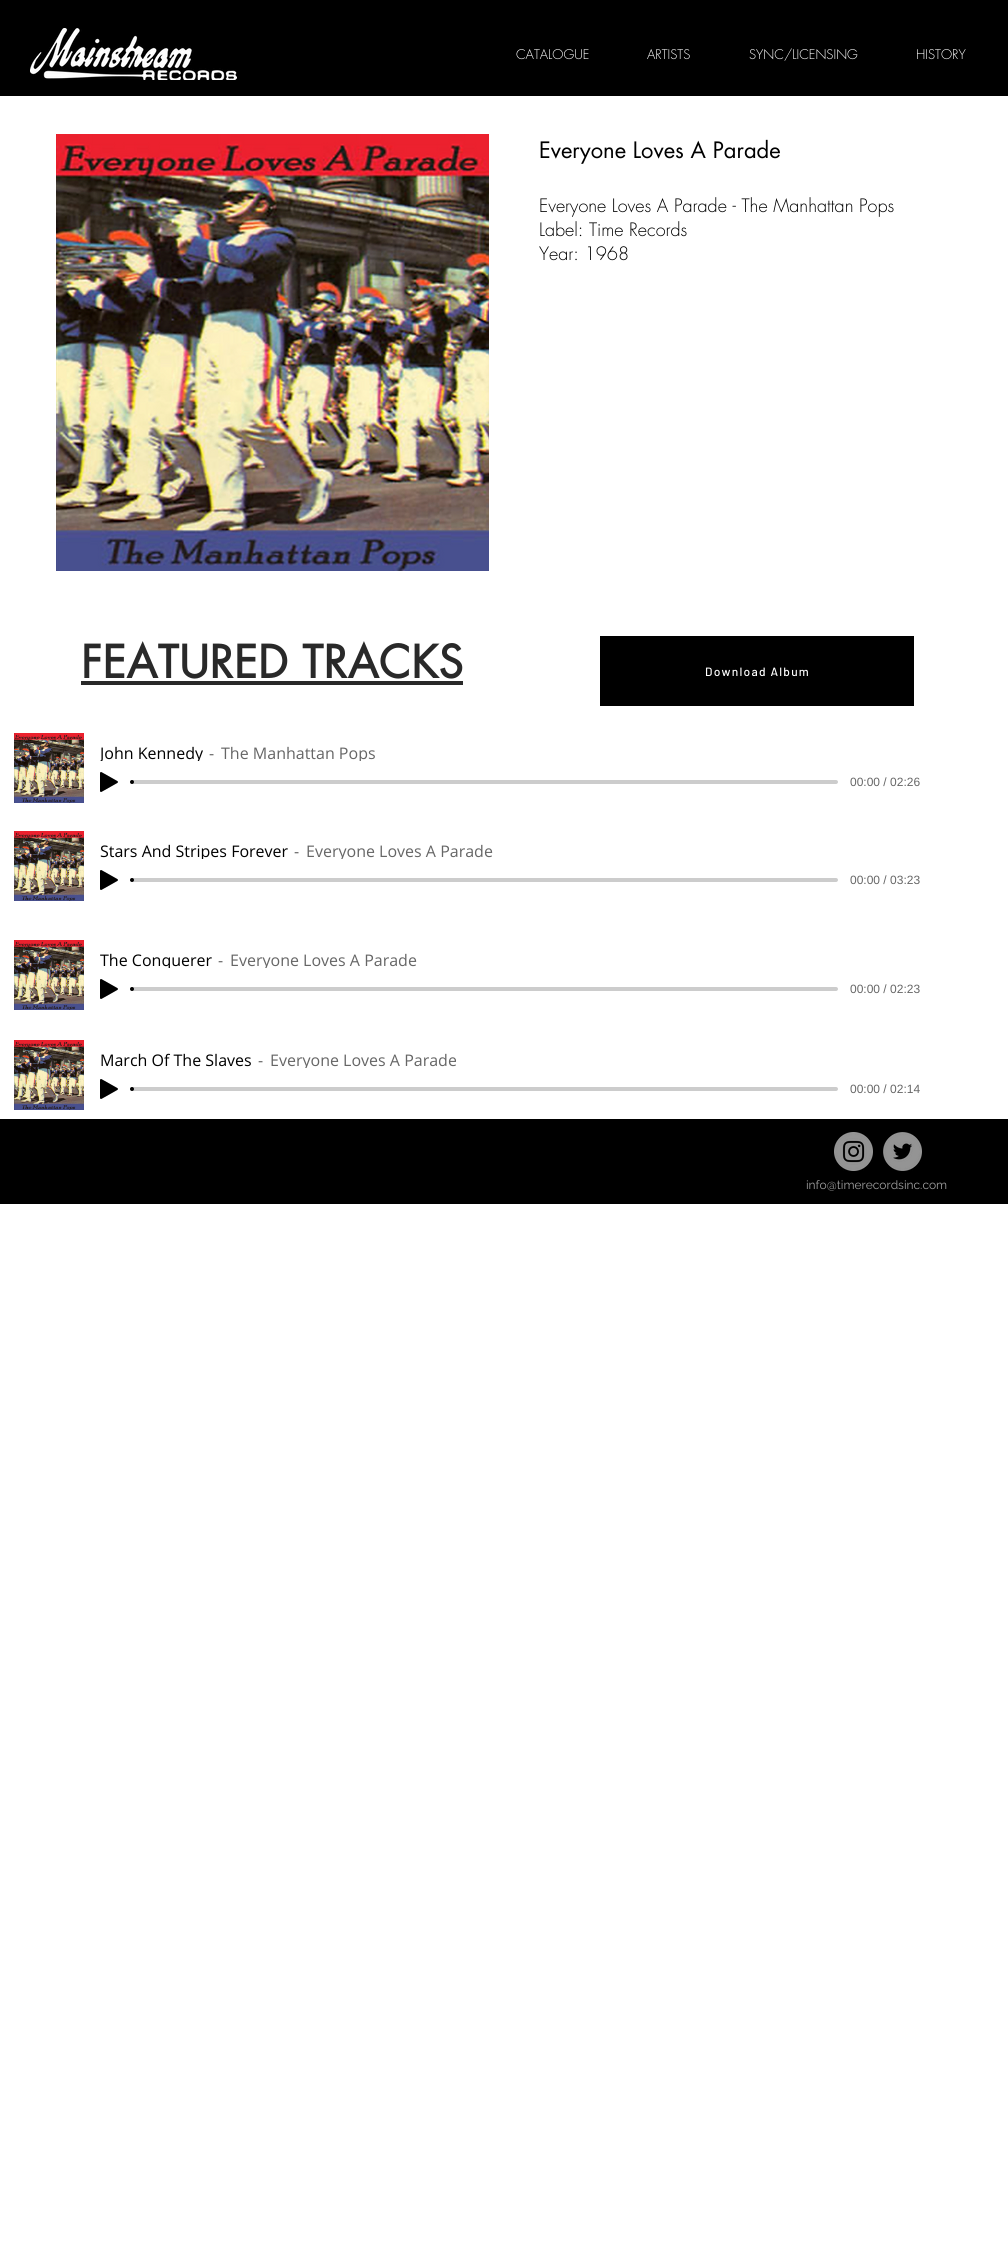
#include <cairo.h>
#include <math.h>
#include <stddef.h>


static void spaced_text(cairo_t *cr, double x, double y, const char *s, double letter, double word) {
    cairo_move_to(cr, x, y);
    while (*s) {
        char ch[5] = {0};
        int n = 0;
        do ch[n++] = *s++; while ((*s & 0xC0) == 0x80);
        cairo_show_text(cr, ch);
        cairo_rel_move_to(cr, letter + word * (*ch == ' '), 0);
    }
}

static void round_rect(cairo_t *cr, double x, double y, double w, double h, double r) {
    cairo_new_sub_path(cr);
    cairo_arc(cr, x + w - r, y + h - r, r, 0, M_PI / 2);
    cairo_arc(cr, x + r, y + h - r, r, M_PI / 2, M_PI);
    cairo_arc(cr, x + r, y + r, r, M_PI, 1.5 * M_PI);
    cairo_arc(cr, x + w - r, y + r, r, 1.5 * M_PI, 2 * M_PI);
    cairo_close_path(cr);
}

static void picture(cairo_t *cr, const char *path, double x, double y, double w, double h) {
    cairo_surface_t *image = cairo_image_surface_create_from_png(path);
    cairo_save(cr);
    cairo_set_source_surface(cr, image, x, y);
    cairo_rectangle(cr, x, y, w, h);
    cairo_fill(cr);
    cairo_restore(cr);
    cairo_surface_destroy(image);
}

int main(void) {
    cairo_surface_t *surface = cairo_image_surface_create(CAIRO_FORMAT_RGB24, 1008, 2245);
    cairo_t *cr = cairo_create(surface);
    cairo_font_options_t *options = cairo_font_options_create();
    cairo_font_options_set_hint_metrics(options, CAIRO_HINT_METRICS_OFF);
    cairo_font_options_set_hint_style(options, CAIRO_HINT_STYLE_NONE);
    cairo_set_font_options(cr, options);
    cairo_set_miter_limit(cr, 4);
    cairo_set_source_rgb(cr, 1, 1, 1);
    cairo_paint(cr);
    cairo_set_source_rgb(cr, 0, 0, 0);
    cairo_rectangle(cr, 0, 0, 1008, 96);
    cairo_fill(cr);
    picture(cr, "img1.png", 30, 28, 207, 52);
    cairo_select_font_face(cr, "futura Light", CAIRO_FONT_SLANT_NORMAL, CAIRO_FONT_WEIGHT_NORMAL);
    cairo_set_font_size(cr, 13);
    cairo_set_source_rgb(cr, 1, 1, 1);
    cairo_move_to(cr, 516, 59);
    cairo_show_text(cr, "CATALOGUE");
    cairo_move_to(cr, 647, 59);
    cairo_show_text(cr, "ARTISTS");
    cairo_move_to(cr, 749, 59);
    cairo_show_text(cr, "SYNC/LICENSING");
    cairo_move_to(cr, 916, 59);
    cairo_show_text(cr, "HISTORY");
    picture(cr, "img2.png", 56, 134, 433, 437);
    cairo_select_font_face(cr, "futura", CAIRO_FONT_SLANT_NORMAL, CAIRO_FONT_WEIGHT_NORMAL);
    cairo_set_font_size(cr, 22);
    cairo_set_source_rgb(cr, 0, 0, 0);
    cairo_move_to(cr, 539, 158);
    cairo_show_text(cr, "Everyone Loves A Parade");
    cairo_select_font_face(cr, "futura Light", CAIRO_FONT_SLANT_NORMAL, CAIRO_FONT_WEIGHT_NORMAL);
    cairo_set_font_size(cr, 18);
    cairo_move_to(cr, 539, 212);
    cairo_show_text(cr, "Everyone Loves A Parade - The Manhattan Pops");
    cairo_move_to(cr, 539, 236);
    cairo_show_text(cr, "Label: Time Records");
    cairo_move_to(cr, 539, 260);
    cairo_show_text(cr, "Year: 1968");
    cairo_select_font_face(cr, "futura", CAIRO_FONT_SLANT_NORMAL, CAIRO_FONT_WEIGHT_BOLD);
    cairo_set_font_size(cr, 44);
    cairo_set_source_rgb(cr, 0.161, 0.161, 0.161);
    spaced_text(cr, 81, 678, "FEATURED TRACKS", 0.5, 0);
    cairo_rectangle(cr, 81, 681, 382, 4);
    cairo_fill(cr);
    cairo_set_source_rgb(cr, 0, 0, 0);
    cairo_rectangle(cr, 600, 636, 314, 70);
    cairo_fill(cr);
    cairo_select_font_face(cr, "Barlow Medium", CAIRO_FONT_SLANT_NORMAL, CAIRO_FONT_WEIGHT_NORMAL);
    cairo_set_font_size(cr, 12);
    cairo_set_source_rgb(cr, 1, 1, 1);
    spaced_text(cr, 705, 676, "Download Album", 1.25, 0);
    picture(cr, "img3.png", 14, 733, 70, 70);
    cairo_save(cr);
    cairo_rectangle(cr, 100, 745, 103, 16);
    cairo_clip(cr);
    cairo_select_font_face(cr, "Open Sans", CAIRO_FONT_SLANT_NORMAL, CAIRO_FONT_WEIGHT_NORMAL);
    cairo_set_font_size(cr, 16);
    cairo_set_source_rgb(cr, 0, 0, 0);
    cairo_move_to(cr, 100, 759);
    cairo_show_text(cr, "John Kennedy");
    cairo_restore(cr);
    cairo_select_font_face(cr, "Open Sans", CAIRO_FONT_SLANT_NORMAL, CAIRO_FONT_WEIGHT_NORMAL);
    cairo_set_font_size(cr, 16);
    cairo_set_source_rgb(cr, 0.4, 0.4, 0.4);
    cairo_move_to(cr, 209, 759);
    cairo_show_text(cr, "-");
    cairo_save(cr);
    cairo_rectangle(cr, 203, 745, 173, 16);
    cairo_clip(cr);
    cairo_move_to(cr, 221, 759);
    cairo_show_text(cr, "The Manhattan Pops");
    cairo_restore(cr);
    picture(cr, "img4.png", 100, 772, 18, 20);
    cairo_set_source_rgb(cr, 0.8, 0.8, 0.8);
    round_rect(cr, 132, 780, 706, 4, 2);
    cairo_fill(cr);
    cairo_set_source_rgb(cr, 0, 0, 0);
    cairo_arc(cr, 132, 782, 2, 0, 2 * M_PI);
    cairo_fill(cr);
    cairo_select_font_face(cr, "Liberation Sans", CAIRO_FONT_SLANT_NORMAL, CAIRO_FONT_WEIGHT_NORMAL);
    cairo_set_font_size(cr, 12);
    cairo_set_source_rgb(cr, 0.4, 0.4, 0.4);
    cairo_move_to(cr, 850, 786);
    cairo_show_text(cr, "00:00 / 02:26");
    picture(cr, "img3.png", 14, 831, 70, 70);
    cairo_save(cr);
    cairo_rectangle(cr, 100, 843, 188, 16);
    cairo_clip(cr);
    cairo_select_font_face(cr, "Open Sans", CAIRO_FONT_SLANT_NORMAL, CAIRO_FONT_WEIGHT_NORMAL);
    cairo_set_font_size(cr, 16);
    cairo_set_source_rgb(cr, 0, 0, 0);
    cairo_move_to(cr, 100, 857);
    cairo_show_text(cr, "Stars And Stripes Forever");
    cairo_restore(cr);
    cairo_select_font_face(cr, "Open Sans", CAIRO_FONT_SLANT_NORMAL, CAIRO_FONT_WEIGHT_NORMAL);
    cairo_set_font_size(cr, 16);
    cairo_move_to(cr, 294, 857);
    cairo_show_text(cr, "-");
    cairo_save(cr);
    cairo_rectangle(cr, 288, 843, 205, 16);
    cairo_clip(cr);
    cairo_move_to(cr, 306, 857);
    cairo_show_text(cr, "Everyone Loves A Parade");
    cairo_restore(cr);
    picture(cr, "img4.png", 100, 870, 18, 20);
    cairo_set_source_rgb(cr, 0.8, 0.8, 0.8);
    round_rect(cr, 132, 878, 706, 4, 2);
    cairo_fill(cr);
    cairo_set_source_rgb(cr, 0, 0, 0);
    cairo_arc(cr, 132, 880, 2, 0, 2 * M_PI);
    cairo_fill(cr);
    cairo_select_font_face(cr, "Liberation Sans", CAIRO_FONT_SLANT_NORMAL, CAIRO_FONT_WEIGHT_NORMAL);
    cairo_set_font_size(cr, 12);
    cairo_set_source_rgb(cr, 0.4, 0.4, 0.4);
    cairo_move_to(cr, 850, 884);
    cairo_show_text(cr, "00:00 / 03:23");
    picture(cr, "img5.png", 14, 940, 70, 70);
    cairo_save(cr);
    cairo_rectangle(cr, 100, 952, 112, 16);
    cairo_clip(cr);
    cairo_select_font_face(cr, "Open Sans", CAIRO_FONT_SLANT_NORMAL, CAIRO_FONT_WEIGHT_NORMAL);
    cairo_set_font_size(cr, 16);
    cairo_set_source_rgb(cr, 0, 0, 0);
    cairo_move_to(cr, 100, 966);
    cairo_show_text(cr, "The Conquerer");
    cairo_restore(cr);
    cairo_select_font_face(cr, "Open Sans", CAIRO_FONT_SLANT_NORMAL, CAIRO_FONT_WEIGHT_NORMAL);
    cairo_set_font_size(cr, 16);
    cairo_move_to(cr, 218, 966);
    cairo_show_text(cr, "-");
    cairo_save(cr);
    cairo_rectangle(cr, 212, 952, 205, 16);
    cairo_clip(cr);
    cairo_move_to(cr, 230, 966);
    cairo_show_text(cr, "Everyone Loves A Parade");
    cairo_restore(cr);
    picture(cr, "img4.png", 100, 979, 18, 20);
    cairo_set_source_rgb(cr, 0.8, 0.8, 0.8);
    round_rect(cr, 132, 987, 706, 4, 2);
    cairo_fill(cr);
    cairo_set_source_rgb(cr, 0, 0, 0);
    cairo_arc(cr, 132, 989, 2, 0, 2 * M_PI);
    cairo_fill(cr);
    cairo_select_font_face(cr, "Liberation Sans", CAIRO_FONT_SLANT_NORMAL, CAIRO_FONT_WEIGHT_NORMAL);
    cairo_set_font_size(cr, 12);
    cairo_set_source_rgb(cr, 0.4, 0.4, 0.4);
    cairo_move_to(cr, 850, 993);
    cairo_show_text(cr, "00:00 / 02:23");
    picture(cr, "img6.png", 14, 1040, 70, 70);
    cairo_select_font_face(cr, "Open Sans", CAIRO_FONT_SLANT_NORMAL, CAIRO_FONT_WEIGHT_NORMAL);
    cairo_set_font_size(cr, 16);
    cairo_set_source_rgb(cr, 0, 0, 0);
    cairo_move_to(cr, 100, 1066);
    cairo_show_text(cr, "March Of The Slaves");
    cairo_set_source_rgb(cr, 0.4, 0.4, 0.4);
    cairo_move_to(cr, 258, 1066);
    cairo_show_text(cr, "-");
    cairo_save(cr);
    cairo_rectangle(cr, 252, 1052, 204, 16);
    cairo_clip(cr);
    cairo_move_to(cr, 270, 1066);
    cairo_show_text(cr, "Everyone Loves A Parade");
    cairo_restore(cr);
    picture(cr, "img4.png", 100, 1079, 18, 20);
    cairo_set_source_rgb(cr, 0.8, 0.8, 0.8);
    round_rect(cr, 132, 1087, 706, 4, 2);
    cairo_fill(cr);
    cairo_set_source_rgb(cr, 0, 0, 0);
    cairo_arc(cr, 132, 1089, 2, 0, 2 * M_PI);
    cairo_fill(cr);
    cairo_select_font_face(cr, "Liberation Sans", CAIRO_FONT_SLANT_NORMAL, CAIRO_FONT_WEIGHT_NORMAL);
    cairo_set_font_size(cr, 12);
    cairo_set_source_rgb(cr, 0.4, 0.4, 0.4);
    cairo_move_to(cr, 850, 1093);
    cairo_show_text(cr, "00:00 / 02:14");
    cairo_set_source_rgb(cr, 0, 0, 0);
    cairo_rectangle(cr, 0, 1119, 1008, 85);
    cairo_fill(cr);
    picture(cr, "img7.png", 834, 1132, 39, 39);
    picture(cr, "img8.png", 883, 1132, 39, 39);
    cairo_select_font_face(cr, "Raleway", CAIRO_FONT_SLANT_NORMAL, CAIRO_FONT_WEIGHT_NORMAL);
    cairo_set_source_rgb(cr, 0.627, 0.627, 0.627);
    cairo_move_to(cr, 806, 1189);
    cairo_show_text(cr, "info@timerecordsinc.com");
    cairo_surface_write_to_png(surface, "page.png");
    cairo_font_options_destroy(options);
    cairo_destroy(cr);
    cairo_surface_destroy(surface);
    return 0;
}
